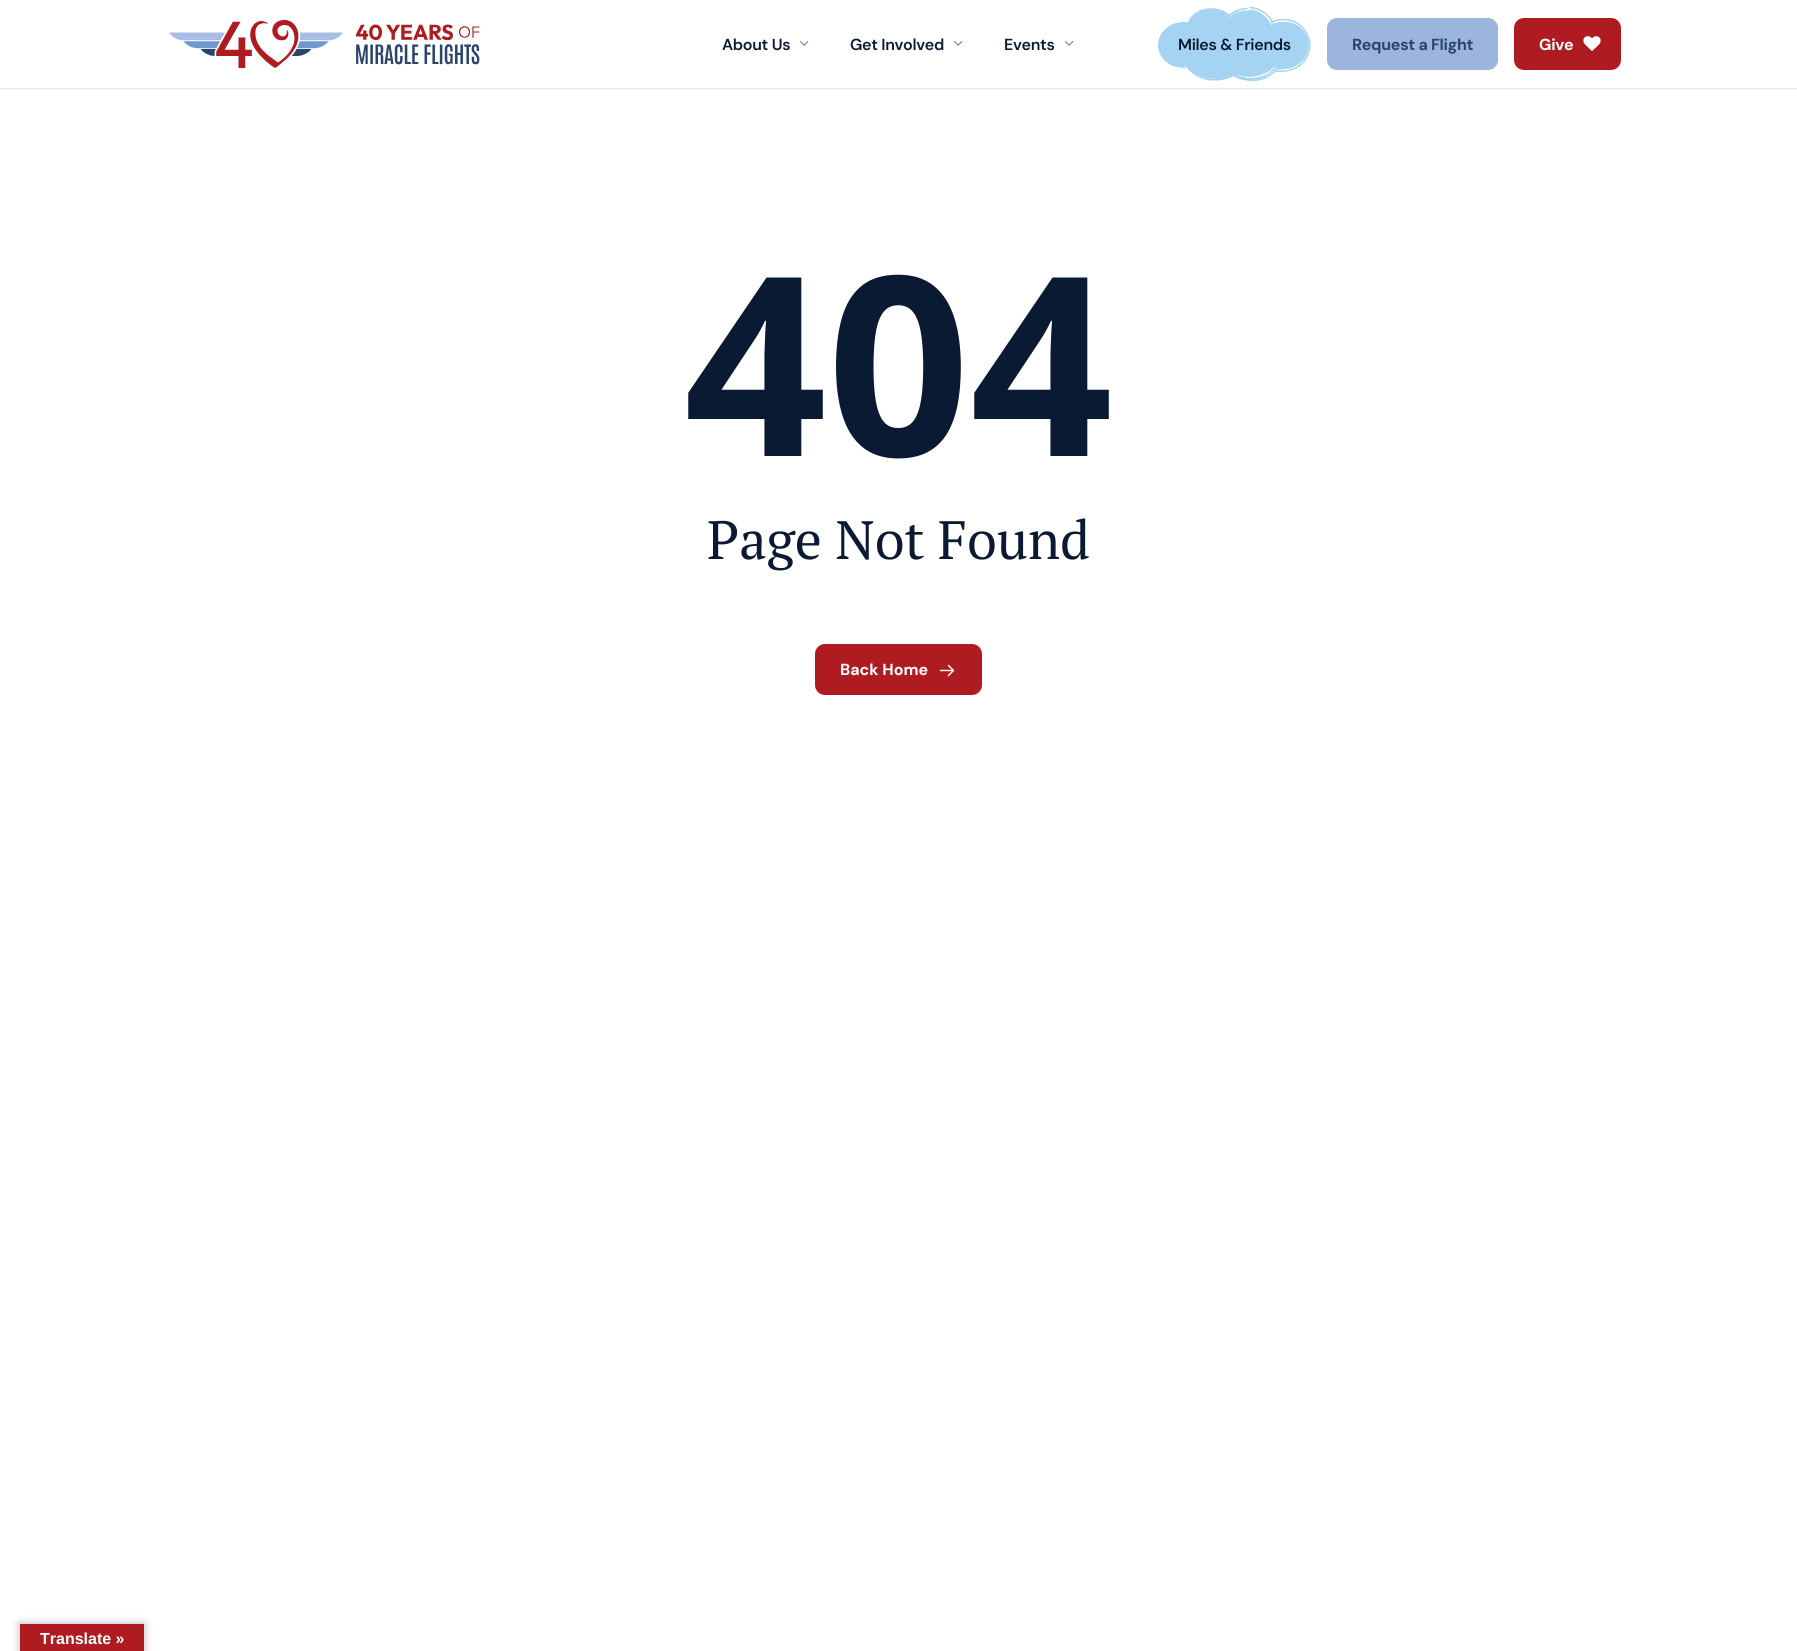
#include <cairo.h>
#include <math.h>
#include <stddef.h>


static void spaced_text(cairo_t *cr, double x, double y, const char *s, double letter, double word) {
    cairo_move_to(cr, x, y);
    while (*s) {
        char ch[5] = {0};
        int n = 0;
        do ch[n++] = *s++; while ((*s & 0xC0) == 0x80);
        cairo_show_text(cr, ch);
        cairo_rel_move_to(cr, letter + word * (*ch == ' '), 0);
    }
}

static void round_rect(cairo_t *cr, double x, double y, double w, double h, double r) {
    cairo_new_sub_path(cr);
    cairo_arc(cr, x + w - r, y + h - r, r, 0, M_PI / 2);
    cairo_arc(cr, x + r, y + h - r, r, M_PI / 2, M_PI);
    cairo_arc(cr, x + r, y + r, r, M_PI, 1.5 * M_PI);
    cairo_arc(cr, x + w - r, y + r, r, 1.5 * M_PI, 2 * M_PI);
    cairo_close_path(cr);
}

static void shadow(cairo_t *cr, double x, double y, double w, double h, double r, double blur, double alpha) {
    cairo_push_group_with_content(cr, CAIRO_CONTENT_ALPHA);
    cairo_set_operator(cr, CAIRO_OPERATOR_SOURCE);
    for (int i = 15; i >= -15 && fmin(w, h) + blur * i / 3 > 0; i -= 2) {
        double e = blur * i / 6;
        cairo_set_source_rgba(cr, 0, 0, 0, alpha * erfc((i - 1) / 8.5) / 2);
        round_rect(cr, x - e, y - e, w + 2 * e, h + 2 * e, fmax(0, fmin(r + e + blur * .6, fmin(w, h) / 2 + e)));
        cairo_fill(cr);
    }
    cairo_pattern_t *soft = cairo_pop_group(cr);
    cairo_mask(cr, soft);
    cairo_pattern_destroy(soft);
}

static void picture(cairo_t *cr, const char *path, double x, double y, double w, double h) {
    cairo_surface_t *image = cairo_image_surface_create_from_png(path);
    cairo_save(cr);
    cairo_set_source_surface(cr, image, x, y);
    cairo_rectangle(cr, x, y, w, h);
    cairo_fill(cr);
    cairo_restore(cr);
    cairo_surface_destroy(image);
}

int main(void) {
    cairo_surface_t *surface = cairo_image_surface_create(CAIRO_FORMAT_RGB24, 1797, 1651);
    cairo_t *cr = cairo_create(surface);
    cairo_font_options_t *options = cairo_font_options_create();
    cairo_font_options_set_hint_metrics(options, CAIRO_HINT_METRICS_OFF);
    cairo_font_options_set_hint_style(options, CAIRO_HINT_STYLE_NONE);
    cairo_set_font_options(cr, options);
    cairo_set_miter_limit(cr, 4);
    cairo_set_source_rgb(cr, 1, 1, 1);
    cairo_paint(cr);
    cairo_save(cr);
    cairo_rectangle(cr, 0, 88, 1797, 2);
    cairo_clip(cr);
    cairo_set_source_rgb(cr, 0, 0, 0);
    shadow(cr, 0, 0, 1797, 88, 0, 1.5, 0.22);
    cairo_restore(cr);
    picture(cr, "img1.png", 169, 20, 311, 48);
    cairo_select_font_face(cr, "DM Sans SemiBold", CAIRO_FONT_SLANT_NORMAL, CAIRO_FONT_WEIGHT_NORMAL);
    cairo_set_font_size(cr, 16);
    cairo_set_source_rgb(cr, 0.043, 0.102, 0.2);
    spaced_text(cr, 722, 50, "About Us", -0.3, 0);
    picture(cr, "img2.png", 799, 41, 10, 5);
    spaced_text(cr, 850, 50, "Get Involved", -0.3, 0);
    picture(cr, "img2.png", 953, 41, 10, 5);
    spaced_text(cr, 1004, 50, "Events", -0.3, 0);
    picture(cr, "img2.png", 1064, 41, 10, 5);
    picture(cr, "img3.png", 1158, 6, 153, 75);
    spaced_text(cr, 1178, 50, "Miles & Friends", -0.3, 0);
    cairo_set_source_rgb(cr, 0.608, 0.71, 0.867);
    round_rect(cr, 1327, 18, 171, 52, 10);
    cairo_fill(cr);
    cairo_select_font_face(cr, "DM Sans", CAIRO_FONT_SLANT_NORMAL, CAIRO_FONT_WEIGHT_BOLD);
    cairo_set_source_rgb(cr, 0.165, 0.267, 0.435);
    spaced_text(cr, 1352, 50, "Request a Flight", -0.3, 0);
    cairo_set_source_rgb(cr, 0.682, 0.106, 0.129);
    round_rect(cr, 1514, 18, 107, 52, 10);
    cairo_fill(cr);
    cairo_set_source_rgb(cr, 1, 1, 1);
    spaced_text(cr, 1539, 50, "Give", -0.3, 0);
    picture(cr, "img4.png", 1583, 36, 18, 15);
    cairo_select_font_face(cr, "Open Sans", CAIRO_FONT_SLANT_NORMAL, CAIRO_FONT_WEIGHT_BOLD);
    cairo_set_font_size(cr, 250);
    cairo_set_source_rgb(cr, 0.043, 0.102, 0.2);
    cairo_move_to(cr, 684, 456);
    cairo_show_text(cr, "404");
    cairo_select_font_face(cr, "PT Serif", CAIRO_FONT_SLANT_NORMAL, CAIRO_FONT_WEIGHT_NORMAL);
    cairo_set_font_size(cr, 54);
    cairo_move_to(cr, 707, 559);
    cairo_show_text(cr, "Page Not Found");
    cairo_set_source_rgb(cr, 0.682, 0.106, 0.129);
    round_rect(cr, 815, 644, 167, 51, 10);
    cairo_fill(cr);
    cairo_select_font_face(cr, "DM Sans", CAIRO_FONT_SLANT_NORMAL, CAIRO_FONT_WEIGHT_BOLD);
    cairo_set_font_size(cr, 16);
    cairo_set_source_rgb(cr, 1, 1, 1);
    cairo_move_to(cr, 840, 675);
    cairo_show_text(cr, "Back Home");
    picture(cr, "img5.png", 939, 664, 16, 13);
    cairo_set_source_rgb(cr, 0, 0, 0);
    shadow(cr, 20, 1624, 124, 27, 0, 4.5, 0.3);
    cairo_set_source_rgb(cr, 0.682, 0.106, 0.129);
    cairo_rectangle(cr, 20, 1624, 124, 27);
    cairo_fill(cr);
    cairo_select_font_face(cr, "Liberation Sans", CAIRO_FONT_SLANT_NORMAL, CAIRO_FONT_WEIGHT_BOLD);
    cairo_set_source_rgb(cr, 1, 1, 1);
    cairo_move_to(cr, 40, 1644);
    cairo_show_text(cr, "Translate »");
    cairo_surface_write_to_png(surface, "page.png");
    cairo_font_options_destroy(options);
    cairo_destroy(cr);
    cairo_surface_destroy(surface);
    return 0;
}
